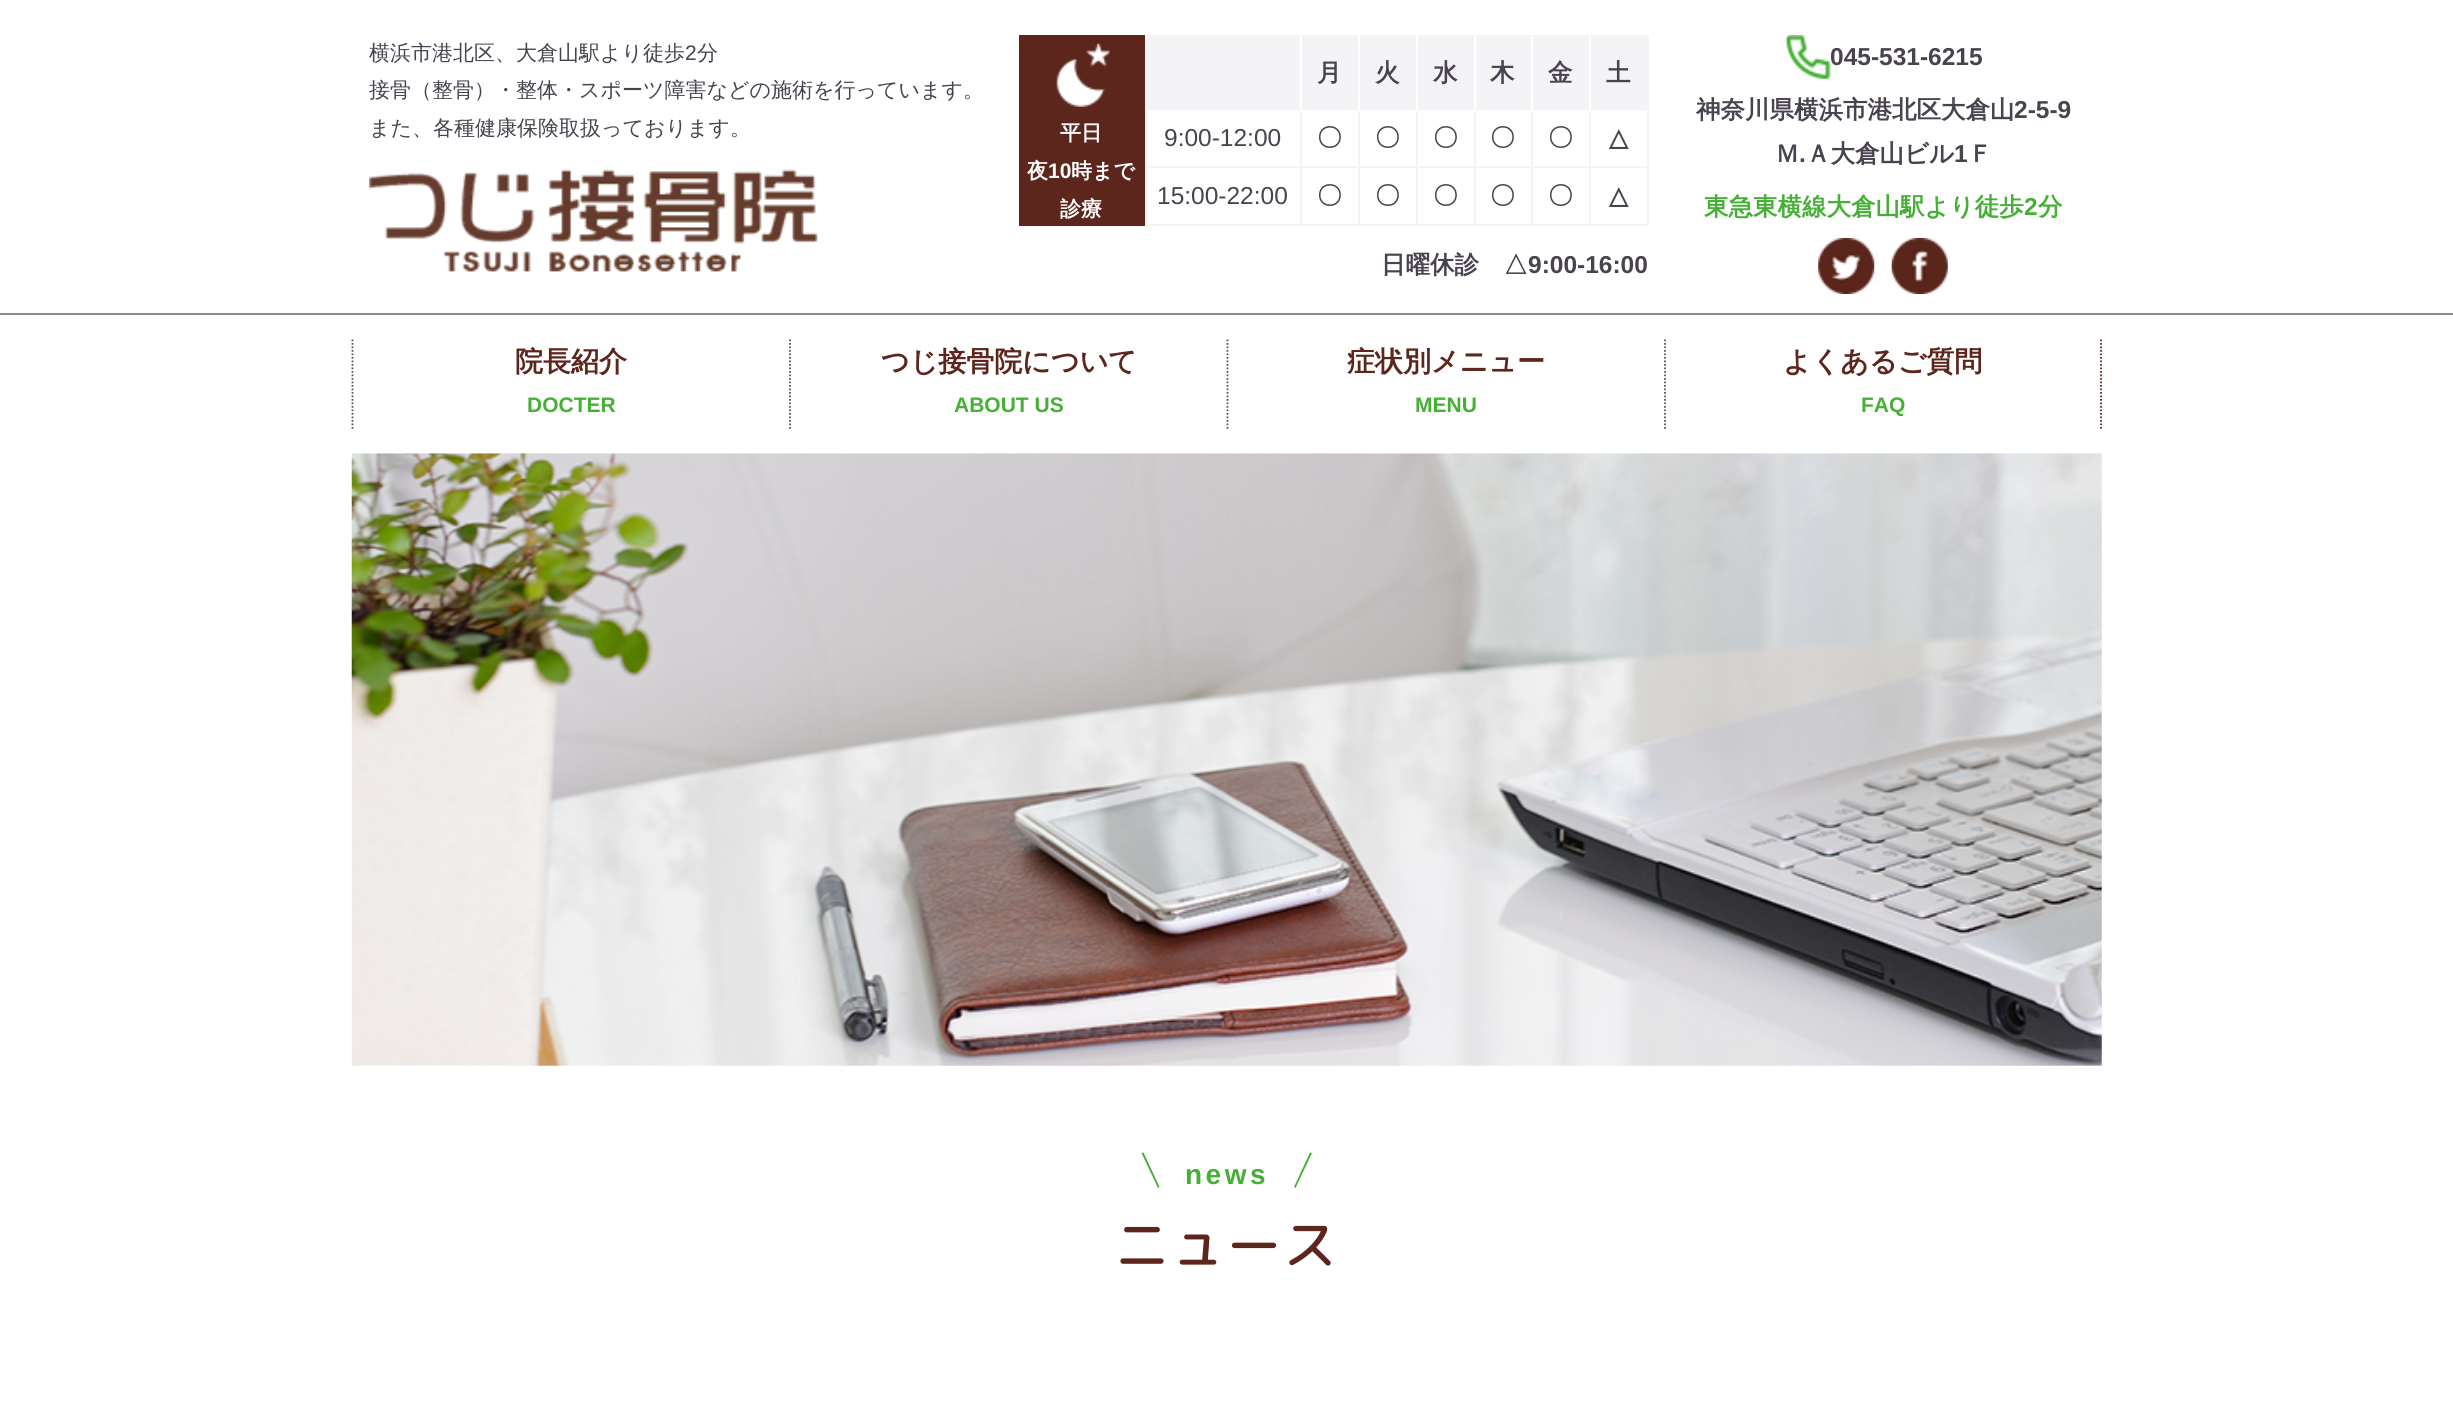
#include <cairo.h>
#include <math.h>
#include <stddef.h>


static void spaced_text(cairo_t *cr, double x, double y, const char *s, double letter, double word) {
    cairo_move_to(cr, x, y);
    while (*s) {
        char ch[5] = {0};
        int n = 0;
        do ch[n++] = *s++; while ((*s & 0xC0) == 0x80);
        cairo_show_text(cr, ch);
        cairo_rel_move_to(cr, letter + word * (*ch == ' '), 0);
    }
}

static void picture(cairo_t *cr, const char *path, double x, double y, double w, double h) {
    cairo_surface_t *image = cairo_image_surface_create_from_png(path);
    cairo_save(cr);
    cairo_set_source_surface(cr, image, x, y);
    cairo_rectangle(cr, x, y, w, h);
    cairo_fill(cr);
    cairo_restore(cr);
    cairo_surface_destroy(image);
}

int main(void) {
    cairo_surface_t *surface = cairo_image_surface_create(CAIRO_FORMAT_RGB24, 2453, 1417);
    cairo_t *cr = cairo_create(surface);
    cairo_font_options_t *options = cairo_font_options_create();
    cairo_font_options_set_hint_metrics(options, CAIRO_HINT_METRICS_OFF);
    cairo_font_options_set_hint_style(options, CAIRO_HINT_STYLE_NONE);
    cairo_set_font_options(cr, options);
    cairo_set_miter_limit(cr, 4);
    cairo_set_source_rgb(cr, 1, 1, 1);
    cairo_paint(cr);
    cairo_select_font_face(cr, "WenQuanYi Zen Hei Medium", CAIRO_FONT_SLANT_NORMAL, CAIRO_FONT_WEIGHT_NORMAL);
    cairo_set_font_size(cr, 21);
    cairo_set_source_rgb(cr, 0.282, 0.263, 0.31);
    cairo_move_to(cr, 369, 60);
    cairo_show_text(cr, "横浜市港北区、大倉山駅より徒歩");
    cairo_select_font_face(cr, "Liberation Sans", CAIRO_FONT_SLANT_NORMAL, CAIRO_FONT_WEIGHT_NORMAL);
    cairo_move_to(cr, 685, 60);
    cairo_show_text(cr, "2");
    cairo_select_font_face(cr, "WenQuanYi Zen Hei Medium", CAIRO_FONT_SLANT_NORMAL, CAIRO_FONT_WEIGHT_NORMAL);
    cairo_move_to(cr, 697, 60);
    cairo_show_text(cr, "分");
    cairo_move_to(cr, 369, 97);
    cairo_show_text(cr, "接骨（整骨）・整体・スポーツ障害などの施術を行っています。");
    cairo_move_to(cr, 369, 135);
    cairo_show_text(cr, "また、各種健康保険取扱っております。");
    picture(cr, "img1.png", 369, 169, 449, 103);
    cairo_set_source_rgb(cr, 0.361, 0.149, 0.11);
    cairo_rectangle(cr, 1019, 35, 126, 191);
    cairo_fill(cr);
    picture(cr, "img2.png", 1056, 43, 54, 64);
    cairo_select_font_face(cr, "WenQuanYi Zen Hei", CAIRO_FONT_SLANT_NORMAL, CAIRO_FONT_WEIGHT_BOLD);
    cairo_set_source_rgb(cr, 1, 1, 1);
    cairo_move_to(cr, 1060, 140);
    cairo_show_text(cr, "平日");
    cairo_move_to(cr, 1027, 178);
    cairo_show_text(cr, "夜");
    cairo_select_font_face(cr, "Liberation Sans", CAIRO_FONT_SLANT_NORMAL, CAIRO_FONT_WEIGHT_BOLD);
    cairo_move_to(cr, 1048, 178);
    cairo_show_text(cr, "10");
    cairo_select_font_face(cr, "WenQuanYi Zen Hei", CAIRO_FONT_SLANT_NORMAL, CAIRO_FONT_WEIGHT_BOLD);
    cairo_move_to(cr, 1071, 178);
    cairo_show_text(cr, "時まで");
    cairo_move_to(cr, 1060, 216);
    cairo_show_text(cr, "診療");
    cairo_set_source_rgb(cr, 0.957, 0.957, 0.961);
    cairo_rectangle(cr, 1145, 35, 504, 2);
    cairo_fill(cr);
    cairo_rectangle(cr, 1647, 35, 2, 191);
    cairo_fill(cr);
    cairo_rectangle(cr, 1145, 224, 504, 2);
    cairo_fill(cr);
    cairo_rectangle(cr, 1145, 35, 2, 191);
    cairo_fill(cr);
    cairo_rectangle(cr, 1147, 37, 153, 73);
    cairo_fill(cr);
    cairo_rectangle(cr, 1589, 166, 2, 60);
    cairo_fill(cr);
    cairo_rectangle(cr, 1589, 166, 60, 2);
    cairo_fill(cr);
    cairo_rectangle(cr, 1589, 110, 2, 58);
    cairo_fill(cr);
    cairo_rectangle(cr, 1531, 166, 2, 60);
    cairo_fill(cr);
    cairo_rectangle(cr, 1531, 166, 60, 2);
    cairo_fill(cr);
    cairo_rectangle(cr, 1531, 110, 2, 58);
    cairo_fill(cr);
    cairo_rectangle(cr, 1474, 166, 2, 60);
    cairo_fill(cr);
    cairo_rectangle(cr, 1474, 166, 59, 2);
    cairo_fill(cr);
    cairo_rectangle(cr, 1474, 110, 2, 58);
    cairo_fill(cr);
    cairo_rectangle(cr, 1416, 166, 2, 60);
    cairo_fill(cr);
    cairo_rectangle(cr, 1416, 166, 59, 2);
    cairo_fill(cr);
    cairo_rectangle(cr, 1416, 110, 2, 58);
    cairo_fill(cr);
    cairo_rectangle(cr, 1358, 166, 2, 60);
    cairo_fill(cr);
    cairo_rectangle(cr, 1358, 166, 60, 2);
    cairo_fill(cr);
    cairo_rectangle(cr, 1358, 110, 2, 58);
    cairo_fill(cr);
    cairo_rectangle(cr, 1300, 166, 2, 60);
    cairo_fill(cr);
    cairo_rectangle(cr, 1300, 166, 60, 2);
    cairo_fill(cr);
    cairo_rectangle(cr, 1300, 110, 2, 58);
    cairo_fill(cr);
    cairo_set_source_rgb(cr, 1, 1, 1);
    cairo_rectangle(cr, 1300, 35, 2, 77);
    cairo_fill(cr);
    cairo_set_source_rgb(cr, 0.957, 0.957, 0.961);
    cairo_rectangle(cr, 1302, 37, 56, 73);
    cairo_fill(cr);
    cairo_set_source_rgb(cr, 1, 1, 1);
    cairo_rectangle(cr, 1358, 35, 2, 77);
    cairo_fill(cr);
    cairo_set_font_size(cr, 24.5);
    cairo_set_source_rgb(cr, 0.282, 0.263, 0.31);
    cairo_move_to(cr, 1317, 81);
    cairo_show_text(cr, "月");
    cairo_set_source_rgb(cr, 0.957, 0.957, 0.961);
    cairo_rectangle(cr, 1360, 37, 56, 73);
    cairo_fill(cr);
    cairo_set_source_rgb(cr, 1, 1, 1);
    cairo_rectangle(cr, 1416, 35, 2, 77);
    cairo_fill(cr);
    cairo_set_source_rgb(cr, 0.282, 0.263, 0.31);
    cairo_move_to(cr, 1375, 81);
    cairo_show_text(cr, "火");
    cairo_set_source_rgb(cr, 0.957, 0.957, 0.961);
    cairo_rectangle(cr, 1418, 37, 56, 73);
    cairo_fill(cr);
    cairo_set_source_rgb(cr, 1, 1, 1);
    cairo_rectangle(cr, 1474, 35, 2, 77);
    cairo_fill(cr);
    cairo_set_source_rgb(cr, 0.282, 0.263, 0.31);
    cairo_move_to(cr, 1433, 81);
    cairo_show_text(cr, "水");
    cairo_set_source_rgb(cr, 0.957, 0.957, 0.961);
    cairo_rectangle(cr, 1476, 37, 55, 73);
    cairo_fill(cr);
    cairo_set_source_rgb(cr, 1, 1, 1);
    cairo_rectangle(cr, 1531, 35, 2, 77);
    cairo_fill(cr);
    cairo_set_source_rgb(cr, 0.282, 0.263, 0.31);
    cairo_move_to(cr, 1490, 81);
    cairo_show_text(cr, "木");
    cairo_set_source_rgb(cr, 0.957, 0.957, 0.961);
    cairo_rectangle(cr, 1533, 37, 56, 73);
    cairo_fill(cr);
    cairo_set_source_rgb(cr, 1, 1, 1);
    cairo_rectangle(cr, 1589, 35, 2, 77);
    cairo_fill(cr);
    cairo_set_source_rgb(cr, 0.282, 0.263, 0.31);
    cairo_move_to(cr, 1548, 81);
    cairo_show_text(cr, "金");
    cairo_set_source_rgb(cr, 0.957, 0.957, 0.961);
    cairo_rectangle(cr, 1591, 37, 56, 73);
    cairo_fill(cr);
    cairo_set_source_rgb(cr, 0.282, 0.263, 0.31);
    cairo_move_to(cr, 1606, 81);
    cairo_show_text(cr, "土");
    cairo_set_source_rgb(cr, 0.957, 0.957, 0.961);
    cairo_rectangle(cr, 1145, 166, 157, 2);
    cairo_fill(cr);
    cairo_select_font_face(cr, "Liberation Sans", CAIRO_FONT_SLANT_NORMAL, CAIRO_FONT_WEIGHT_NORMAL);
    cairo_set_source_rgb(cr, 0.282, 0.263, 0.31);
    cairo_move_to(cr, 1164, 146);
    cairo_show_text(cr, "9:00-12:00");
    cairo_select_font_face(cr, "WenQuanYi Zen Hei", CAIRO_FONT_SLANT_NORMAL, CAIRO_FONT_WEIGHT_BOLD);
    cairo_move_to(cr, 1317, 146);
    cairo_show_text(cr, "〇");
    cairo_move_to(cr, 1375, 146);
    cairo_show_text(cr, "〇");
    cairo_move_to(cr, 1433, 146);
    cairo_show_text(cr, "〇");
    cairo_move_to(cr, 1490, 146);
    cairo_show_text(cr, "〇");
    cairo_move_to(cr, 1548, 146);
    cairo_show_text(cr, "〇");
    cairo_select_font_face(cr, "DejaVu Sans", CAIRO_FONT_SLANT_NORMAL, CAIRO_FONT_WEIGHT_BOLD);
    cairo_move_to(cr, 1609, 146);
    cairo_show_text(cr, "△");
    cairo_select_font_face(cr, "Liberation Sans", CAIRO_FONT_SLANT_NORMAL, CAIRO_FONT_WEIGHT_NORMAL);
    cairo_move_to(cr, 1157, 204);
    cairo_show_text(cr, "15:00-22:00");
    cairo_select_font_face(cr, "WenQuanYi Zen Hei", CAIRO_FONT_SLANT_NORMAL, CAIRO_FONT_WEIGHT_BOLD);
    cairo_move_to(cr, 1317, 204);
    cairo_show_text(cr, "〇");
    cairo_move_to(cr, 1375, 204);
    cairo_show_text(cr, "〇");
    cairo_move_to(cr, 1433, 204);
    cairo_show_text(cr, "〇");
    cairo_move_to(cr, 1490, 204);
    cairo_show_text(cr, "〇");
    cairo_move_to(cr, 1548, 204);
    cairo_show_text(cr, "〇");
    cairo_select_font_face(cr, "DejaVu Sans", CAIRO_FONT_SLANT_NORMAL, CAIRO_FONT_WEIGHT_BOLD);
    cairo_move_to(cr, 1609, 204);
    cairo_show_text(cr, "△");
    cairo_select_font_face(cr, "WenQuanYi Zen Hei", CAIRO_FONT_SLANT_NORMAL, CAIRO_FONT_WEIGHT_BOLD);
    cairo_move_to(cr, 1381, 273);
    cairo_show_text(cr, "日曜休診　△");
    cairo_select_font_face(cr, "Liberation Sans", CAIRO_FONT_SLANT_NORMAL, CAIRO_FONT_WEIGHT_BOLD);
    cairo_move_to(cr, 1528, 273);
    cairo_show_text(cr, "9:00-16:00");
    picture(cr, "img3.png", 1785, 35, 46, 44);
    cairo_move_to(cr, 1830, 65);
    cairo_show_text(cr, "045-531-6215");
    cairo_select_font_face(cr, "WenQuanYi Zen Hei", CAIRO_FONT_SLANT_NORMAL, CAIRO_FONT_WEIGHT_BOLD);
    cairo_move_to(cr, 1696, 118);
    cairo_show_text(cr, "神奈川県横浜市港北区大倉山");
    cairo_select_font_face(cr, "Liberation Sans", CAIRO_FONT_SLANT_NORMAL, CAIRO_FONT_WEIGHT_BOLD);
    cairo_move_to(cr, 2014, 118);
    cairo_show_text(cr, "2-5-9");
    cairo_select_font_face(cr, "WenQuanYi Zen Hei", CAIRO_FONT_SLANT_NORMAL, CAIRO_FONT_WEIGHT_BOLD);
    cairo_move_to(cr, 1775, 162);
    cairo_show_text(cr, "Ｍ");
    cairo_select_font_face(cr, "Liberation Sans", CAIRO_FONT_SLANT_NORMAL, CAIRO_FONT_WEIGHT_BOLD);
    cairo_move_to(cr, 1799, 162);
    cairo_show_text(cr, ".");
    cairo_select_font_face(cr, "WenQuanYi Zen Hei", CAIRO_FONT_SLANT_NORMAL, CAIRO_FONT_WEIGHT_BOLD);
    cairo_move_to(cr, 1806, 162);
    cairo_show_text(cr, "Ａ大倉山ビル");
    cairo_select_font_face(cr, "Liberation Sans", CAIRO_FONT_SLANT_NORMAL, CAIRO_FONT_WEIGHT_BOLD);
    cairo_move_to(cr, 1954, 162);
    cairo_show_text(cr, "1");
    cairo_select_font_face(cr, "WenQuanYi Zen Hei", CAIRO_FONT_SLANT_NORMAL, CAIRO_FONT_WEIGHT_BOLD);
    cairo_move_to(cr, 1968, 162);
    cairo_show_text(cr, "Ｆ");
    cairo_set_source_rgb(cr, 0.271, 0.69, 0.208);
    cairo_move_to(cr, 1704, 215);
    cairo_show_text(cr, "東急東横線大倉山駅より徒歩");
    cairo_select_font_face(cr, "Liberation Sans", CAIRO_FONT_SLANT_NORMAL, CAIRO_FONT_WEIGHT_BOLD);
    cairo_move_to(cr, 2024, 215);
    cairo_show_text(cr, "2");
    cairo_select_font_face(cr, "WenQuanYi Zen Hei", CAIRO_FONT_SLANT_NORMAL, CAIRO_FONT_WEIGHT_BOLD);
    cairo_move_to(cr, 2038, 215);
    cairo_show_text(cr, "分");
    picture(cr, "img4.png", 1818, 238, 57, 56);
    picture(cr, "img5.png", 1891, 238, 57, 56);
    cairo_set_source_rgb(cr, 0.545, 0.545, 0.545);
    cairo_rectangle(cr, 0, 313, 2453, 2);
    cairo_fill(cr);
    cairo_new_path(cr);
    cairo_move_to(cr, 352.5, 339.5);
    cairo_line_to(cr, 352.5, 429);
    cairo_set_source_rgb(cr, 0.329, 0.337, 0.341);
    cairo_set_line_width(cr, 1.8);
    cairo_set_dash(cr, (double[]){1.75, 1.75}, 2, 0);
    cairo_stroke(cr);
    cairo_set_font_size(cr, 28);
    cairo_set_source_rgb(cr, 0.361, 0.149, 0.11);
    cairo_move_to(cr, 515, 371);
    cairo_show_text(cr, "院長紹介");
    cairo_select_font_face(cr, "Liberation Sans", CAIRO_FONT_SLANT_NORMAL, CAIRO_FONT_WEIGHT_BOLD);
    cairo_set_font_size(cr, 21);
    cairo_set_source_rgb(cr, 0.271, 0.69, 0.208);
    cairo_move_to(cr, 527, 412);
    cairo_show_text(cr, "DOCTER");
    cairo_new_path(cr);
    cairo_move_to(cr, 790, 339.5);
    cairo_line_to(cr, 790, 429);
    cairo_set_source_rgb(cr, 0.329, 0.337, 0.341);
    cairo_stroke(cr);
    cairo_select_font_face(cr, "WenQuanYi Zen Hei", CAIRO_FONT_SLANT_NORMAL, CAIRO_FONT_WEIGHT_BOLD);
    cairo_set_font_size(cr, 28);
    cairo_set_source_rgb(cr, 0.361, 0.149, 0.11);
    cairo_move_to(cr, 881, 371);
    cairo_show_text(cr, "つじ接骨院について");
    cairo_select_font_face(cr, "Liberation Sans", CAIRO_FONT_SLANT_NORMAL, CAIRO_FONT_WEIGHT_BOLD);
    cairo_set_font_size(cr, 21);
    cairo_set_source_rgb(cr, 0.271, 0.69, 0.208);
    cairo_move_to(cr, 954, 412);
    cairo_show_text(cr, "ABOUT US");
    cairo_new_path(cr);
    cairo_move_to(cr, 1227.5, 339.5);
    cairo_line_to(cr, 1227.5, 429);
    cairo_set_source_rgb(cr, 0.329, 0.337, 0.341);
    cairo_stroke(cr);
    cairo_select_font_face(cr, "WenQuanYi Zen Hei", CAIRO_FONT_SLANT_NORMAL, CAIRO_FONT_WEIGHT_BOLD);
    cairo_set_font_size(cr, 28);
    cairo_set_source_rgb(cr, 0.361, 0.149, 0.11);
    cairo_move_to(cr, 1347, 371);
    cairo_show_text(cr, "症状別メニュー");
    cairo_select_font_face(cr, "Liberation Sans", CAIRO_FONT_SLANT_NORMAL, CAIRO_FONT_WEIGHT_BOLD);
    cairo_set_font_size(cr, 21);
    cairo_set_source_rgb(cr, 0.271, 0.69, 0.208);
    cairo_move_to(cr, 1415, 412);
    cairo_show_text(cr, "MENU");
    cairo_new_path(cr);
    cairo_move_to(cr, 2101, 339.5);
    cairo_line_to(cr, 2101, 429);
    cairo_set_source_rgb(cr, 0.361, 0.149, 0.11);
    cairo_stroke(cr);
    cairo_new_path(cr);
    cairo_move_to(cr, 1665, 339.5);
    cairo_line_to(cr, 1665, 429);
    cairo_set_source_rgb(cr, 0.329, 0.337, 0.341);
    cairo_stroke(cr);
    cairo_select_font_face(cr, "WenQuanYi Zen Hei", CAIRO_FONT_SLANT_NORMAL, CAIRO_FONT_WEIGHT_BOLD);
    cairo_set_font_size(cr, 28);
    cairo_set_source_rgb(cr, 0.361, 0.149, 0.11);
    cairo_move_to(cr, 1783, 371);
    cairo_show_text(cr, "よくあるご質問");
    cairo_select_font_face(cr, "Liberation Sans", CAIRO_FONT_SLANT_NORMAL, CAIRO_FONT_WEIGHT_BOLD);
    cairo_set_font_size(cr, 21);
    cairo_set_source_rgb(cr, 0.271, 0.69, 0.208);
    cairo_move_to(cr, 1861, 412);
    cairo_show_text(cr, "FAQ");
    picture(cr, "img6.png", 351, 453, 1751, 613);
    cairo_new_path(cr);
    cairo_move_to(cr, 1141.5, 1153);
    cairo_line_to(cr, 1143.5, 1152.5);
    cairo_line_to(cr, 1159.5, 1187);
    cairo_line_to(cr, 1158, 1188);
    cairo_close_path(cr);
    cairo_fill(cr);
    cairo_set_font_size(cr, 28);
    spaced_text(cr, 1185, 1184, "news", 3.5, 0);
    cairo_new_path(cr);
    cairo_move_to(cr, 1310, 1152.5);
    cairo_line_to(cr, 1312, 1153);
    cairo_line_to(cr, 1295.5, 1188);
    cairo_line_to(cr, 1294, 1187);
    cairo_close_path(cr);
    cairo_fill(cr);
    cairo_select_font_face(cr, "Rounded Mplus 1c", CAIRO_FONT_SLANT_NORMAL, CAIRO_FONT_WEIGHT_BOLD);
    cairo_set_font_size(cr, 52.5);
    cairo_set_source_rgb(cr, 0.361, 0.149, 0.11);
    spaced_text(cr, 1115, 1265, "ニュース", 3.5, 0);
    cairo_surface_write_to_png(surface, "page.png");
    cairo_font_options_destroy(options);
    cairo_destroy(cr);
    cairo_surface_destroy(surface);
    return 0;
}
